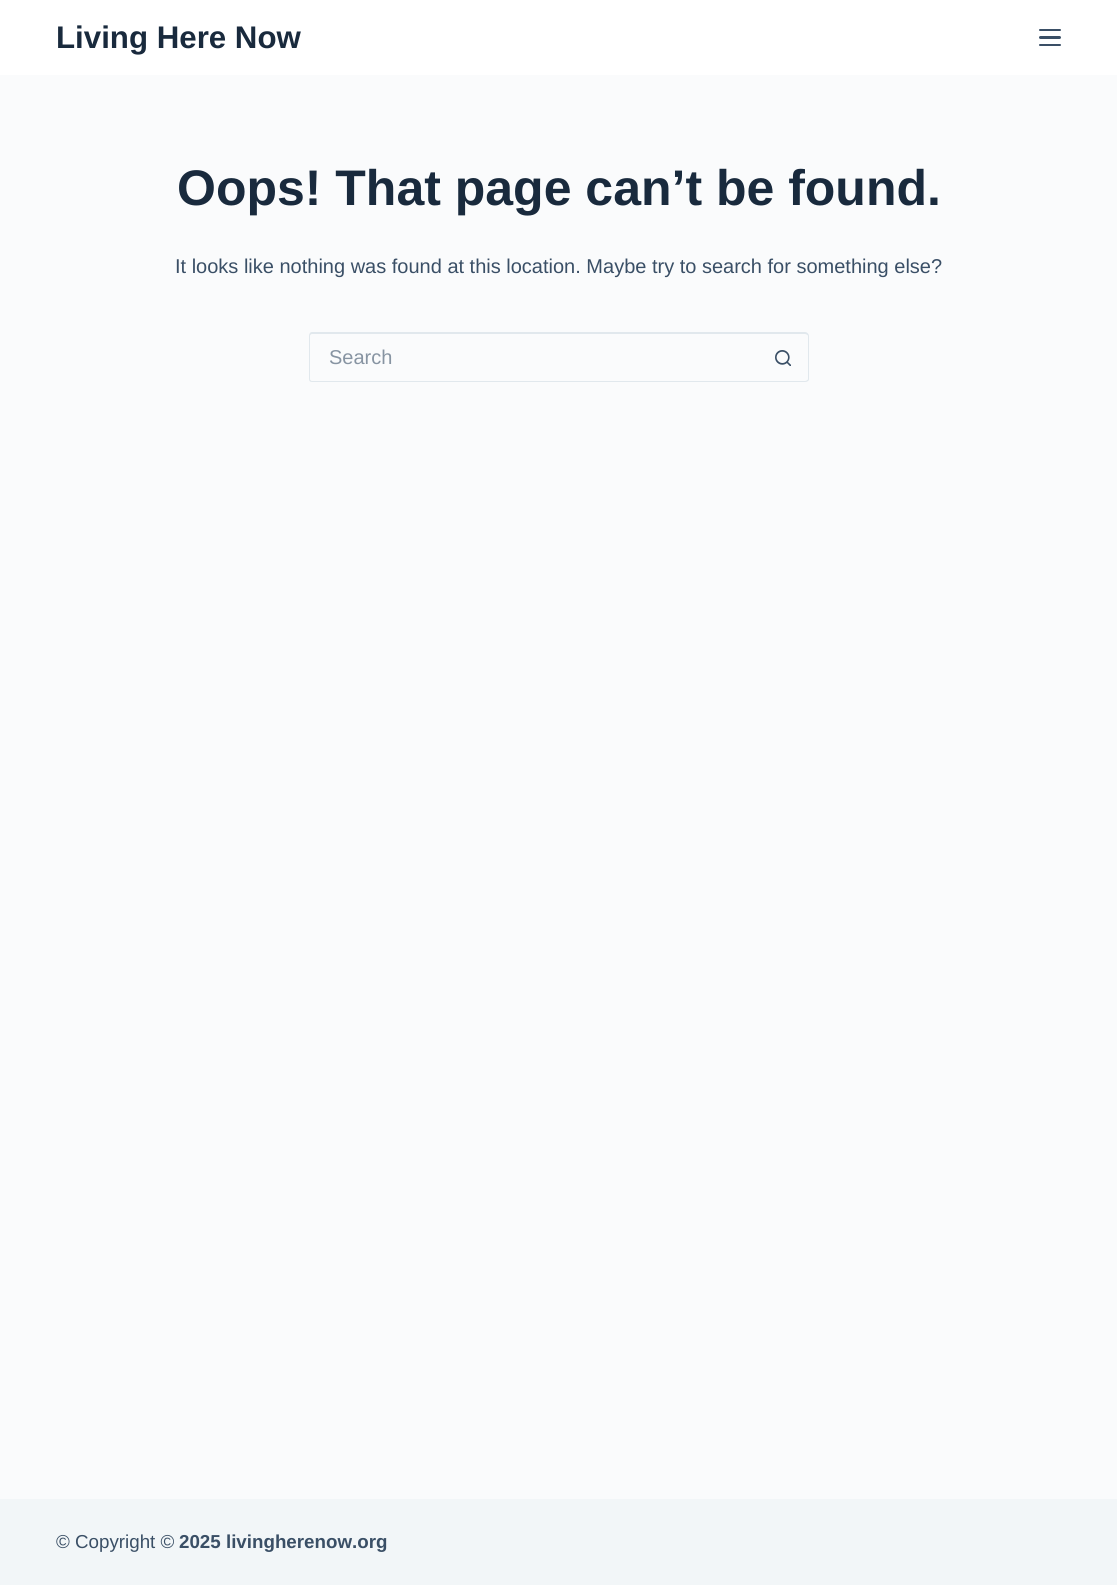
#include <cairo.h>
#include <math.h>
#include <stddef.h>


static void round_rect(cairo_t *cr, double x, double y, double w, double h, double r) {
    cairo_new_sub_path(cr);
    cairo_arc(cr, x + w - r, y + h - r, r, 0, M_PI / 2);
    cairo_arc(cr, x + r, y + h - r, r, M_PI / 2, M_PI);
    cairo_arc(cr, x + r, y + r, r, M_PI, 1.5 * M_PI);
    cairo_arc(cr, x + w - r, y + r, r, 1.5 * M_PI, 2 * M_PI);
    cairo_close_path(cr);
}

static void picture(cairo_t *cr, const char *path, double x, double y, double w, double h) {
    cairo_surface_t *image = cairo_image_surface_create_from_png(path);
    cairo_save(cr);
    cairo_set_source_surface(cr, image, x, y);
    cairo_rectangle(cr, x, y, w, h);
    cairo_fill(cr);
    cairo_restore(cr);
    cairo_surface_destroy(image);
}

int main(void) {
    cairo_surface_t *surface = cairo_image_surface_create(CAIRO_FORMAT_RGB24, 1117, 1585);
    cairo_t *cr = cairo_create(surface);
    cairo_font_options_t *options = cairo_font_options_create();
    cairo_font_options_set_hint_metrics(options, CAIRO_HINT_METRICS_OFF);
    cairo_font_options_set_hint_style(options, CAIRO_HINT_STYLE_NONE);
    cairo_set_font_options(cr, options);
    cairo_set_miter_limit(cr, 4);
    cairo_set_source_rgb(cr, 0.98, 0.984, 0.988);
    cairo_paint(cr);
    cairo_set_source_rgb(cr, 1, 1, 1);
    cairo_rectangle(cr, 0, 0, 1117, 75);
    cairo_fill(cr);
    cairo_select_font_face(cr, "Liberation Sans", CAIRO_FONT_SLANT_NORMAL, CAIRO_FONT_WEIGHT_BOLD);
    cairo_set_font_size(cr, 31.25);
    cairo_set_source_rgb(cr, 0.098, 0.165, 0.239);
    cairo_move_to(cr, 56, 48);
    cairo_show_text(cr, "Living Here Now");
    cairo_set_source_rgb(cr, 0.227, 0.31, 0.4);
    round_rect(cr, 1039, 29, 22, 2, 1);
    cairo_fill(cr);
    round_rect(cr, 1039, 36, 22, 3, 1.5);
    cairo_fill(cr);
    round_rect(cr, 1039, 44, 22, 2, 1);
    cairo_fill(cr);
    cairo_set_font_size(cr, 50);
    cairo_set_source_rgb(cr, 0.098, 0.165, 0.239);
    cairo_move_to(cr, 177, 205);
    cairo_show_text(cr, "Oops! That page can’t be found.");
    cairo_select_font_face(cr, "Liberation Sans", CAIRO_FONT_SLANT_NORMAL, CAIRO_FONT_WEIGHT_NORMAL);
    cairo_set_font_size(cr, 20);
    cairo_set_source_rgb(cr, 0.227, 0.31, 0.4);
    cairo_move_to(cr, 175, 273);
    cairo_show_text(cr, "It looks like nothing was found at this location. Maybe try to search for something else?");
    cairo_set_source_rgb(cr, 0.882, 0.91, 0.929);
    cairo_set_fill_rule(cr, CAIRO_FILL_RULE_EVEN_ODD);
    cairo_new_path(cr);
    cairo_move_to(cr, 312, 332);
    cairo_line_to(cr, 759, 332);
    cairo_line_to(cr, 759, 382);
    cairo_line_to(cr, 312, 382);
    cairo_curve_to(cr, 310, 382, 309, 381, 309, 379);
    cairo_line_to(cr, 309, 336);
    cairo_curve_to(cr, 309, 334, 310, 332, 312, 332);
    cairo_close_path(cr);
    cairo_move_to(cr, 312, 334);
    cairo_line_to(cr, 759, 334);
    cairo_line_to(cr, 759, 381);
    cairo_line_to(cr, 312, 381);
    cairo_curve_to(cr, 311, 381, 310, 380, 310, 379);
    cairo_line_to(cr, 310, 336);
    cairo_curve_to(cr, 310, 335, 311, 334, 312, 334);
    cairo_close_path(cr);
    cairo_fill(cr);
    cairo_set_source_rgb(cr, 0.529, 0.58, 0.635);
    cairo_move_to(cr, 329, 364);
    cairo_show_text(cr, "Search");
    cairo_set_source_rgb(cr, 0.882, 0.91, 0.929);
    cairo_new_path(cr);
    cairo_move_to(cr, 759, 332);
    cairo_line_to(cr, 805, 332);
    cairo_curve_to(cr, 807, 332, 809, 334, 809, 336);
    cairo_line_to(cr, 809, 379);
    cairo_curve_to(cr, 809, 381, 807, 382, 805, 382);
    cairo_line_to(cr, 759, 382);
    cairo_close_path(cr);
    cairo_move_to(cr, 759, 334);
    cairo_line_to(cr, 805, 334);
    cairo_curve_to(cr, 806, 334, 808, 335, 808, 336);
    cairo_line_to(cr, 808, 379);
    cairo_curve_to(cr, 808, 380, 806, 381, 805, 381);
    cairo_line_to(cr, 759, 381);
    cairo_close_path(cr);
    cairo_fill(cr);
    picture(cr, "img1.png", 775, 350, 16, 16);
    cairo_set_source_rgb(cr, 0.949, 0.961, 0.969);
    cairo_rectangle(cr, 0, 1499, 1117, 86);
    cairo_fill(cr);
    cairo_set_font_size(cr, 18.75);
    cairo_set_source_rgb(cr, 0.227, 0.31, 0.4);
    cairo_move_to(cr, 56, 1548);
    cairo_show_text(cr, "© Copyright ©");
    cairo_select_font_face(cr, "Liberation Sans", CAIRO_FONT_SLANT_NORMAL, CAIRO_FONT_WEIGHT_BOLD);
    cairo_move_to(cr, 179, 1548);
    cairo_show_text(cr, "2025 livingherenow.org");
    cairo_surface_write_to_png(surface, "page.png");
    cairo_font_options_destroy(options);
    cairo_destroy(cr);
    cairo_surface_destroy(surface);
    return 0;
}
